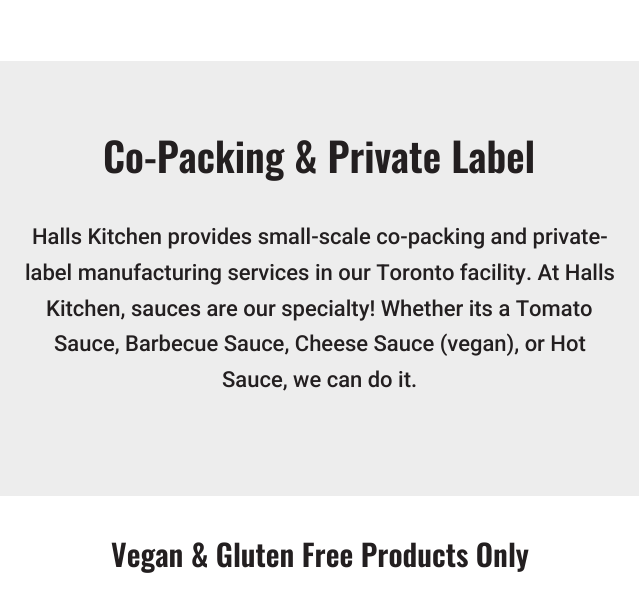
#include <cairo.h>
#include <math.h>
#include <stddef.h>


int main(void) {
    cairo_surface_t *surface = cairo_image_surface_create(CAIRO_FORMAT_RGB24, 639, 601);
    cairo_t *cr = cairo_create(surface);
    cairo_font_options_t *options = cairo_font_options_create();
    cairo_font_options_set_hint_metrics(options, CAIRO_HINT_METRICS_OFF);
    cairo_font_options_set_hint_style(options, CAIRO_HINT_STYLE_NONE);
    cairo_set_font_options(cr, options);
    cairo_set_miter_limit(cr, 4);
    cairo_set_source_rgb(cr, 1, 1, 1);
    cairo_paint(cr);
    cairo_set_source_rgb(cr, 0.929, 0.929, 0.929);
    cairo_rectangle(cr, 0, 61, 639, 435);
    cairo_fill(cr);
    cairo_select_font_face(cr, "Oswald SemiBold", CAIRO_FONT_SLANT_NORMAL, CAIRO_FONT_WEIGHT_NORMAL);
    cairo_set_font_size(cr, 40);
    cairo_set_source_rgb(cr, 0.137, 0.122, 0.125);
    cairo_move_to(cr, 103, 173);
    cairo_show_text(cr, "Co-Packing & Private Label");
    cairo_select_font_face(cr, "Roboto Medium", CAIRO_FONT_SLANT_NORMAL, CAIRO_FONT_WEIGHT_NORMAL);
    cairo_set_font_size(cr, 22);
    cairo_move_to(cr, 32, 244);
    cairo_show_text(cr, "Halls Kitchen provides small-scale co-packing and private-");
    cairo_move_to(cr, 25, 280);
    cairo_show_text(cr, "label manufacturing services in our Toronto facility. At Halls");
    cairo_move_to(cr, 46, 316);
    cairo_show_text(cr, "Kitchen, sauces are our specialty! Whether its a Tomato");
    cairo_move_to(cr, 54, 351);
    cairo_show_text(cr, "Sauce, Barbecue Sauce, Cheese Sauce (vegan), or Hot");
    cairo_move_to(cr, 222, 387);
    cairo_show_text(cr, "Sauce, we can do it.");
    cairo_select_font_face(cr, "Oswald SemiBold", CAIRO_FONT_SLANT_NORMAL, CAIRO_FONT_WEIGHT_NORMAL);
    cairo_set_font_size(cr, 30);
    cairo_move_to(cr, 111, 567);
    cairo_show_text(cr, "Vegan & Gluten Free Products Only");
    cairo_surface_write_to_png(surface, "page.png");
    cairo_font_options_destroy(options);
    cairo_destroy(cr);
    cairo_surface_destroy(surface);
    return 0;
}
